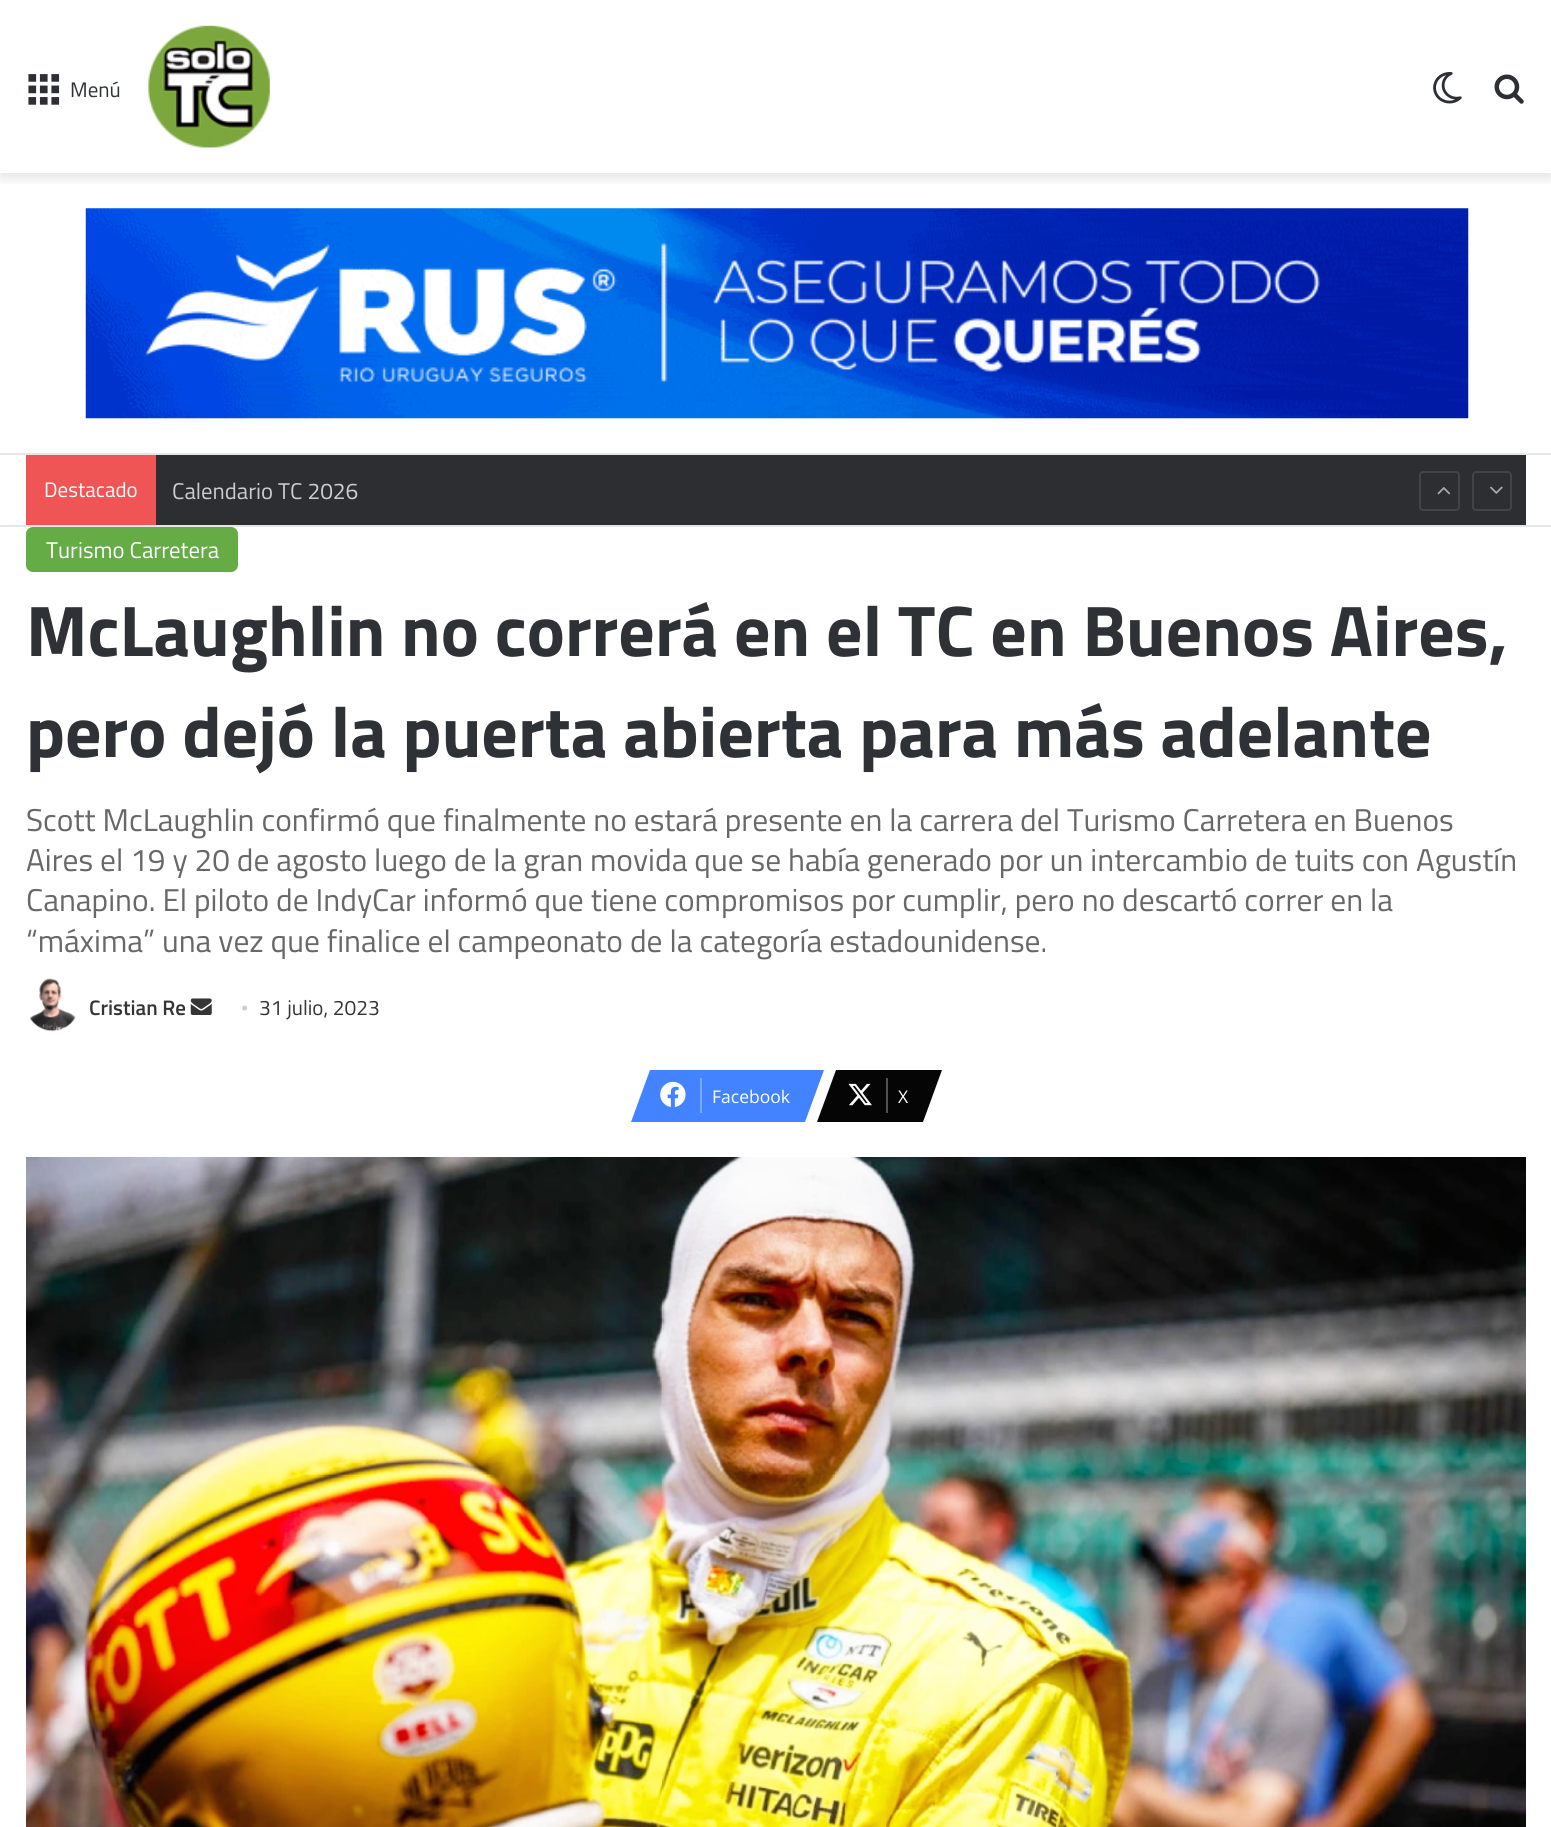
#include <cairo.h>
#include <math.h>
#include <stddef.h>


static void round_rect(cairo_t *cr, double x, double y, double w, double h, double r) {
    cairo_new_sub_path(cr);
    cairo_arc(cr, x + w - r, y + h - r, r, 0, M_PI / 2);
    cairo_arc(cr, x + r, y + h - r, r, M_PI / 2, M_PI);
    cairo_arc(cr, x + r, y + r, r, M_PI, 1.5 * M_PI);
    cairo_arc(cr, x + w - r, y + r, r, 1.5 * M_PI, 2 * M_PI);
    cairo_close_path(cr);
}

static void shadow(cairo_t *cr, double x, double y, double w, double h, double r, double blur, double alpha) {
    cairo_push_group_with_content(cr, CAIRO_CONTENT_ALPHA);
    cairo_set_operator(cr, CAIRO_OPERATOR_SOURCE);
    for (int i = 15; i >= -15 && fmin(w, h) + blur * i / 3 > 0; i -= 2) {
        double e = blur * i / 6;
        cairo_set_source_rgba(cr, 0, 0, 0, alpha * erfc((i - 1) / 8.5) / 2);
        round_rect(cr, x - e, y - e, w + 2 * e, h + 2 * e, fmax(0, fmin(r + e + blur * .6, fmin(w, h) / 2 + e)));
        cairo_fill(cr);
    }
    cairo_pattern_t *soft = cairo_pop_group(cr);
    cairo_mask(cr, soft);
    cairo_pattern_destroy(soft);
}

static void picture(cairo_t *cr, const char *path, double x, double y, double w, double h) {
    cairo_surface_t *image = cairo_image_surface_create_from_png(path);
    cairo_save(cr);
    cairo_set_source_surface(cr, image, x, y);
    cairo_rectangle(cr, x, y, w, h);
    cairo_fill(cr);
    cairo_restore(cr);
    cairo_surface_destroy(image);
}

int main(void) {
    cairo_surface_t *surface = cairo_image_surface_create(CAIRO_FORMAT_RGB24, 1551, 1827);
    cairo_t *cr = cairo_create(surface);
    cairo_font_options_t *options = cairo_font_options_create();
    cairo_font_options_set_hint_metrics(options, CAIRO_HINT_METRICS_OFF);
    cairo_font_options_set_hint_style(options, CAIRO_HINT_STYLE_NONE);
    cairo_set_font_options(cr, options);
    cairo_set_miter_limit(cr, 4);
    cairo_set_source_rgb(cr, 1, 1, 1);
    cairo_paint(cr);
    cairo_save(cr);
    cairo_rectangle(cr, 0, 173, 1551, 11);
    cairo_clip(cr);
    cairo_set_source_rgb(cr, 0, 0, 0);
    shadow(cr, 0, 5, 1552, 174, 0, 6, 0.1);
    cairo_restore(cr);
    picture(cr, "img1.png", 28, 74, 32, 31);
    cairo_select_font_face(cr, "Titillium Web", CAIRO_FONT_SLANT_NORMAL, CAIRO_FONT_WEIGHT_NORMAL);
    cairo_set_font_size(cr, 21);
    cairo_set_source_rgb(cr, 0.18, 0.192, 0.212);
    cairo_move_to(cr, 70, 97);
    cairo_show_text(cr, "Menú");
    picture(cr, "img2.png", 148, 25, 122, 123);
    picture(cr, "img3.png", 1433, 72, 29, 32);
    picture(cr, "img4.png", 1494, 74, 30, 30);
    picture(cr, "img5.png", 85, 208, 1384, 211);
    cairo_set_source_rgb(cr, 0.902, 0.902, 0.902);
    cairo_rectangle(cr, 0, 453, 1551, 2);
    cairo_fill(cr);
    cairo_rectangle(cr, 0, 525, 1551, 2);
    cairo_fill(cr);
    cairo_set_source_rgb(cr, 0.173, 0.18, 0.196);
    cairo_rectangle(cr, 156, 455, 1370, 70);
    cairo_fill(cr);
    cairo_set_source_rgb(cr, 0.941, 0.333, 0.333);
    cairo_rectangle(cr, 26, 455, 130, 70);
    cairo_fill(cr);
    cairo_set_source_rgb(cr, 1, 1, 1);
    cairo_move_to(cr, 44, 497);
    cairo_show_text(cr, "Destacado");
    cairo_set_font_size(cr, 22.75);
    cairo_set_source_rgb(cr, 0.804, 0.804, 0.804);
    cairo_move_to(cr, 172, 499);
    cairo_show_text(cr, "Calendario TC 2026");
    round_rect(cr, 1420, 472, 39, 38, 3);
    cairo_set_source_rgb(cr, 0.255, 0.263, 0.278);
    cairo_stroke(cr);
    picture(cr, "img6.png", 1437, 487, 14, 8);
    round_rect(cr, 1473, 472, 38, 38, 3);
    cairo_stroke(cr);
    picture(cr, "img7.png", 1490, 486, 13, 8);
    cairo_set_source_rgb(cr, 0.396, 0.675, 0.275);
    round_rect(cr, 26, 527, 212, 45, 7);
    cairo_fill(cr);
    cairo_set_source_rgb(cr, 1, 1, 1);
    cairo_move_to(cr, 46, 558);
    cairo_show_text(cr, "Turismo Carretera");
    cairo_select_font_face(cr, "Titillium Web", CAIRO_FONT_SLANT_NORMAL, CAIRO_FONT_WEIGHT_BOLD);
    cairo_set_font_size(cr, 71.75);
    cairo_set_source_rgb(cr, 0.18, 0.192, 0.212);
    cairo_move_to(cr, 26, 656);
    cairo_show_text(cr, "McLaughlin no correrá en el TC en Buenos Aires,");
    cairo_move_to(cr, 26, 757);
    cairo_show_text(cr, "pero dejó la puerta abierta para más adelante");
    cairo_select_font_face(cr, "Titillium Web", CAIRO_FONT_SLANT_NORMAL, CAIRO_FONT_WEIGHT_NORMAL);
    cairo_set_font_size(cr, 31.5);
    cairo_set_source_rgb(cr, 0.408, 0.408, 0.408);
    cairo_move_to(cr, 26, 831);
    cairo_show_text(cr, "Scott McLaughlin confirmó que finalmente no estará presente en la carrera del Turismo Carretera en Buenos");
    cairo_move_to(cr, 26, 871);
    cairo_show_text(cr, "Aires el 19 y 20 de agosto luego de la gran movida que se había generado por un intercambio de tuits con Agustín");
    cairo_move_to(cr, 26, 911);
    cairo_show_text(cr, "Canapino. El piloto de IndyCar informó que tiene compromisos por cumplir, pero no descartó correr en la");
    cairo_move_to(cr, 26, 952);
    cairo_show_text(cr, "“máxima” una vez que finalice el campeonato de la categoría estadounidense.");
    picture(cr, "img8.png", 30, 978, 46, 54);
    cairo_select_font_face(cr, "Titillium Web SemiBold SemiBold", CAIRO_FONT_SLANT_NORMAL, CAIRO_FONT_WEIGHT_NORMAL);
    cairo_set_font_size(cr, 21);
    cairo_set_source_rgb(cr, 0.208, 0.208, 0.208);
    cairo_move_to(cr, 89, 1015);
    cairo_show_text(cr, "Cristian Re");
    picture(cr, "img9.png", 190, 998, 22, 17);
    cairo_select_font_face(cr, "Liberation Serif", CAIRO_FONT_SLANT_NORMAL, CAIRO_FONT_WEIGHT_NORMAL);
    cairo_set_source_rgb(cr, 0.804, 0.804, 0.804);
    cairo_move_to(cr, 241, 1015);
    cairo_show_text(cr, "•");
    cairo_select_font_face(cr, "Titillium Web", CAIRO_FONT_SLANT_NORMAL, CAIRO_FONT_WEIGHT_NORMAL);
    cairo_set_source_rgb(cr, 0.208, 0.208, 0.208);
    cairo_move_to(cr, 259, 1015);
    cairo_show_text(cr, "31 julio, 2023");
    cairo_set_source_rgb(cr, 0.267, 0.514, 1);
    cairo_new_path(cr);
    cairo_move_to(cr, 650, 1070);
    cairo_line_to(cr, 824, 1070);
    cairo_line_to(cr, 805, 1122);
    cairo_line_to(cr, 631, 1122);
    cairo_close_path(cr);
    cairo_fill(cr);
    picture(cr, "img10.png", 660, 1081, 26, 26);
    cairo_set_source_rgb(cr, 0.486, 0.659, 1);
    cairo_rectangle(cr, 700, 1078, 2, 35);
    cairo_fill(cr);
    cairo_select_font_face(cr, "Open Sans", CAIRO_FONT_SLANT_NORMAL, CAIRO_FONT_WEIGHT_NORMAL);
    cairo_set_font_size(cr, 17.5);
    cairo_set_source_rgb(cr, 1, 1, 1);
    cairo_move_to(cr, 712, 1103);
    cairo_show_text(cr, "Facebook");
    cairo_set_source_rgb(cr, 0.02, 0.02, 0.02);
    cairo_new_path(cr);
    cairo_move_to(cr, 836, 1070);
    cairo_line_to(cr, 942, 1070);
    cairo_line_to(cr, 923, 1122);
    cairo_line_to(cr, 817, 1122);
    cairo_close_path(cr);
    cairo_fill(cr);
    picture(cr, "img11.png", 848, 1083, 24, 23);
    cairo_set_source_rgb(cr, 0.314, 0.314, 0.314);
    cairo_rectangle(cr, 886, 1078, 2, 35);
    cairo_fill(cr);
    cairo_set_source_rgb(cr, 1, 1, 1);
    cairo_move_to(cr, 898, 1103);
    cairo_show_text(cr, "X");
    picture(cr, "img12.png", 26, 1157, 1500, 670);
    cairo_surface_write_to_png(surface, "page.png");
    cairo_font_options_destroy(options);
    cairo_destroy(cr);
    cairo_surface_destroy(surface);
    return 0;
}
